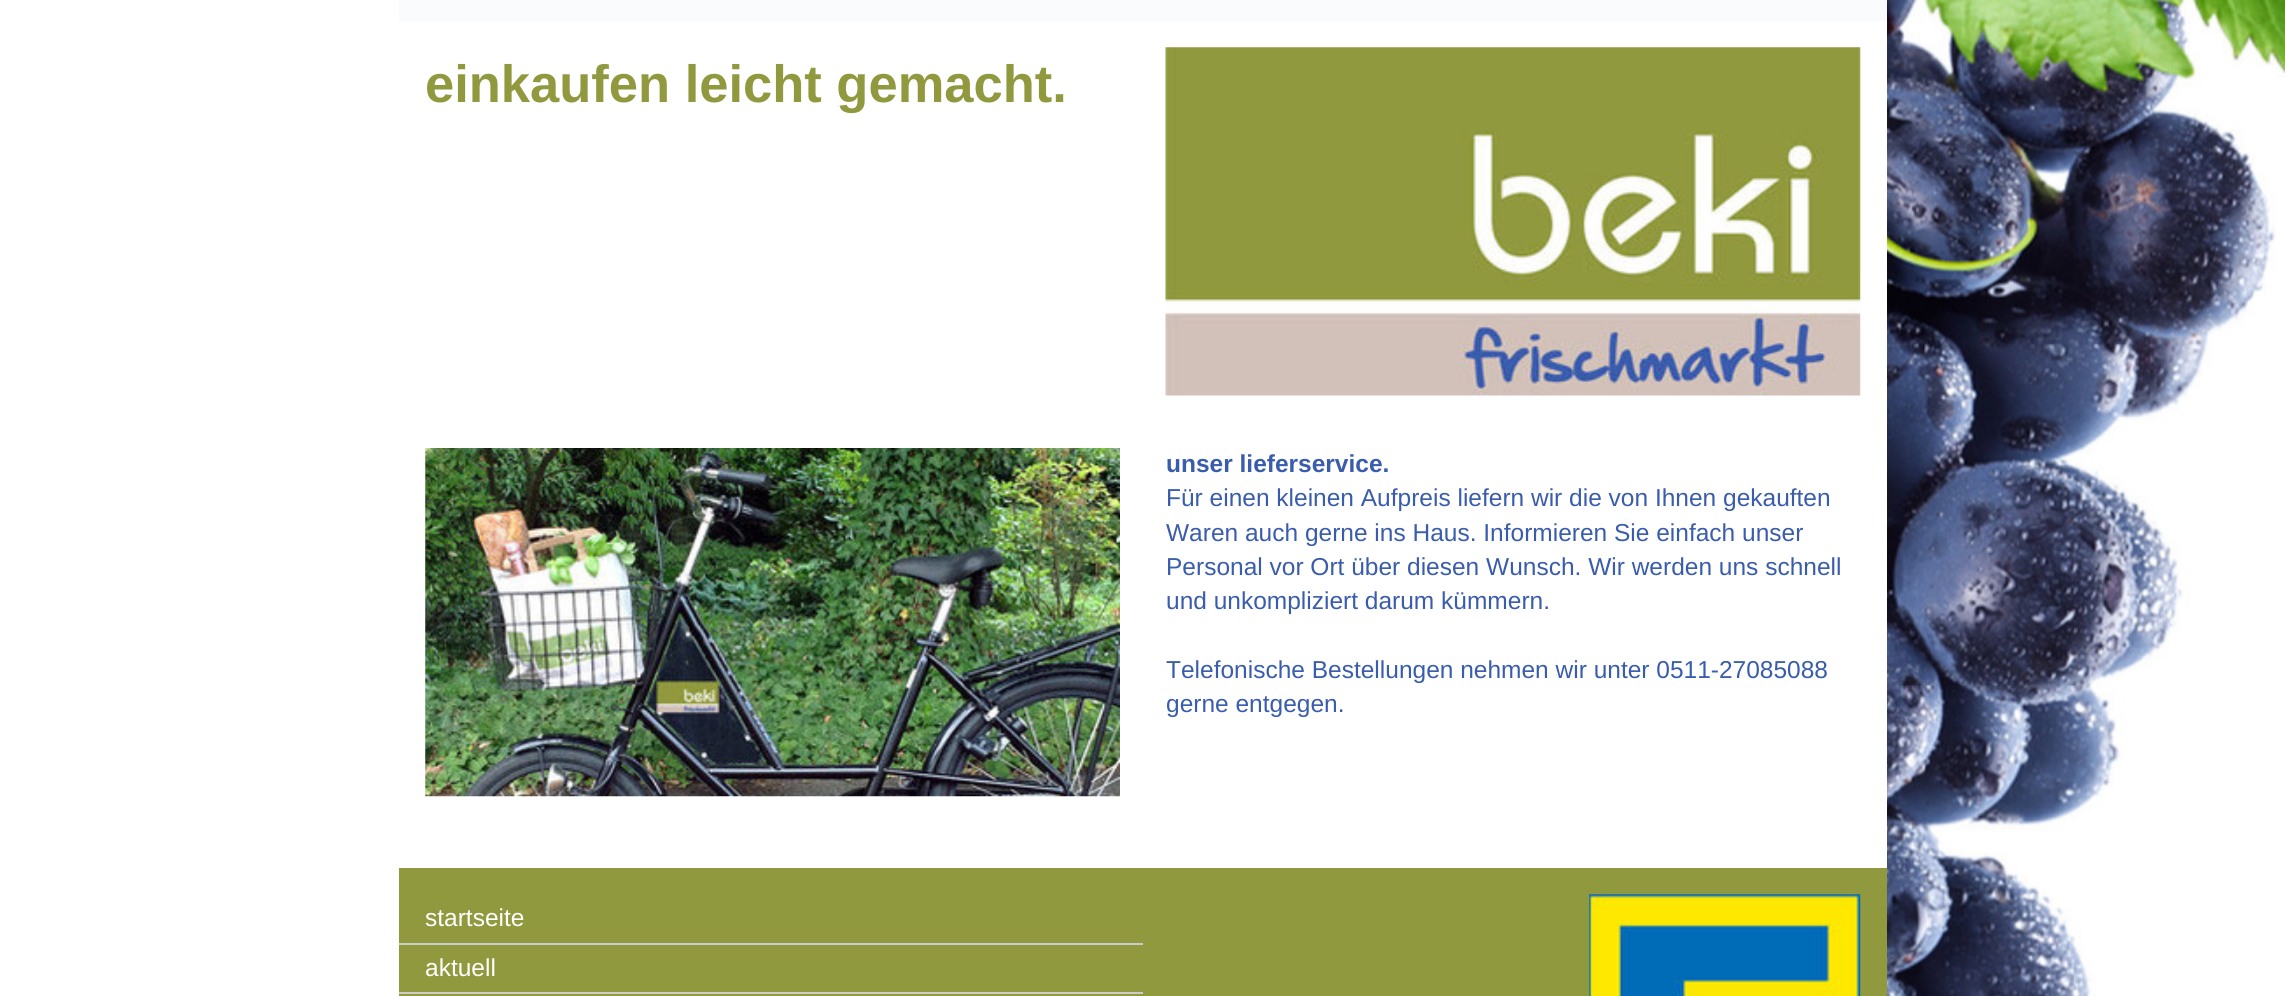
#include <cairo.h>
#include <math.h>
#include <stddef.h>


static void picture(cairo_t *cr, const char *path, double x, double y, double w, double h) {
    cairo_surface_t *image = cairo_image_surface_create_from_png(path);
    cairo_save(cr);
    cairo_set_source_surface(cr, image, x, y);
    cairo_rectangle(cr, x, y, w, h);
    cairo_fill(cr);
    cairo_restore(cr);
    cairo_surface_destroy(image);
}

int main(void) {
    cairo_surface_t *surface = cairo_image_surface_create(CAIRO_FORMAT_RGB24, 2285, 996);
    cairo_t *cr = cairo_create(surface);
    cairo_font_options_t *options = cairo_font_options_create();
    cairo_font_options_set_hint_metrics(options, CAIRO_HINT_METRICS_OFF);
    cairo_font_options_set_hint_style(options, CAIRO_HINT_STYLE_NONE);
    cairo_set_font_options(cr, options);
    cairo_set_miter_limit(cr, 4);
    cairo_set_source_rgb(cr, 1, 1, 1);
    cairo_paint(cr);
    picture(cr, "img1.png", 0, 0, 2285, 996);
    cairo_set_source_rgb(cr, 0.569, 0.6, 0.243);
    cairo_rectangle(cr, 399, 868, 1488, 128);
    cairo_fill(cr);
    cairo_set_source_rgb(cr, 0.973, 0.984, 0.988);
    cairo_rectangle(cr, 399, 0, 1488, 21);
    cairo_fill(cr);
    cairo_set_source_rgb(cr, 1, 1, 1);
    cairo_rectangle(cr, 1089, 21, 798, 847);
    cairo_fill(cr);
    cairo_select_font_face(cr, "Liberation Sans", CAIRO_FONT_SLANT_NORMAL, CAIRO_FONT_WEIGHT_BOLD);
    cairo_set_font_size(cr, 52.5);
    cairo_set_source_rgb(cr, 0.569, 0.6, 0.243);
    cairo_move_to(cr, 425, 102);
    cairo_show_text(cr, "einkaufen leicht gemacht.");
    picture(cr, "img2.png", 1165, 47, 696, 349);
    picture(cr, "img3.png", 425, 448, 695, 349);
    cairo_set_font_size(cr, 24.5);
    cairo_set_source_rgb(cr, 0.227, 0.361, 0.678);
    cairo_move_to(cr, 1166, 472);
    cairo_show_text(cr, "unser lieferservice.");
    cairo_select_font_face(cr, "Liberation Sans", CAIRO_FONT_SLANT_NORMAL, CAIRO_FONT_WEIGHT_NORMAL);
    cairo_move_to(cr, 1166, 506);
    cairo_show_text(cr, "Für einen kleinen Aufpreis liefern wir die von Ihnen gekauften");
    cairo_move_to(cr, 1166, 541);
    cairo_show_text(cr, "Waren auch gerne ins Haus. Informieren Sie einfach unser");
    cairo_move_to(cr, 1166, 575);
    cairo_show_text(cr, "Personal vor Ort über diesen Wunsch. Wir werden uns schnell");
    cairo_move_to(cr, 1166, 609);
    cairo_show_text(cr, "und unkompliziert darum kümmern.");
    cairo_move_to(cr, 1166, 678);
    cairo_show_text(cr, "Telefonische Bestellungen nehmen wir unter 0511-27085088");
    cairo_move_to(cr, 1166, 712);
    cairo_show_text(cr, "gerne entgegen.");
    cairo_set_source_rgb(cr, 0.8, 0.8, 0.8);
    cairo_rectangle(cr, 399, 943, 744, 2);
    cairo_fill(cr);
    cairo_set_source_rgb(cr, 1, 1, 1);
    cairo_move_to(cr, 425, 926);
    cairo_show_text(cr, "startseite");
    cairo_set_source_rgb(cr, 0.8, 0.8, 0.8);
    cairo_rectangle(cr, 399, 992, 744, 2);
    cairo_fill(cr);
    cairo_set_source_rgb(cr, 1, 1, 1);
    cairo_move_to(cr, 425, 976);
    cairo_show_text(cr, "aktuell");
    picture(cr, "img4.png", 1589, 894, 272, 102);
    cairo_surface_write_to_png(surface, "page.png");
    cairo_font_options_destroy(options);
    cairo_destroy(cr);
    cairo_surface_destroy(surface);
    return 0;
}
